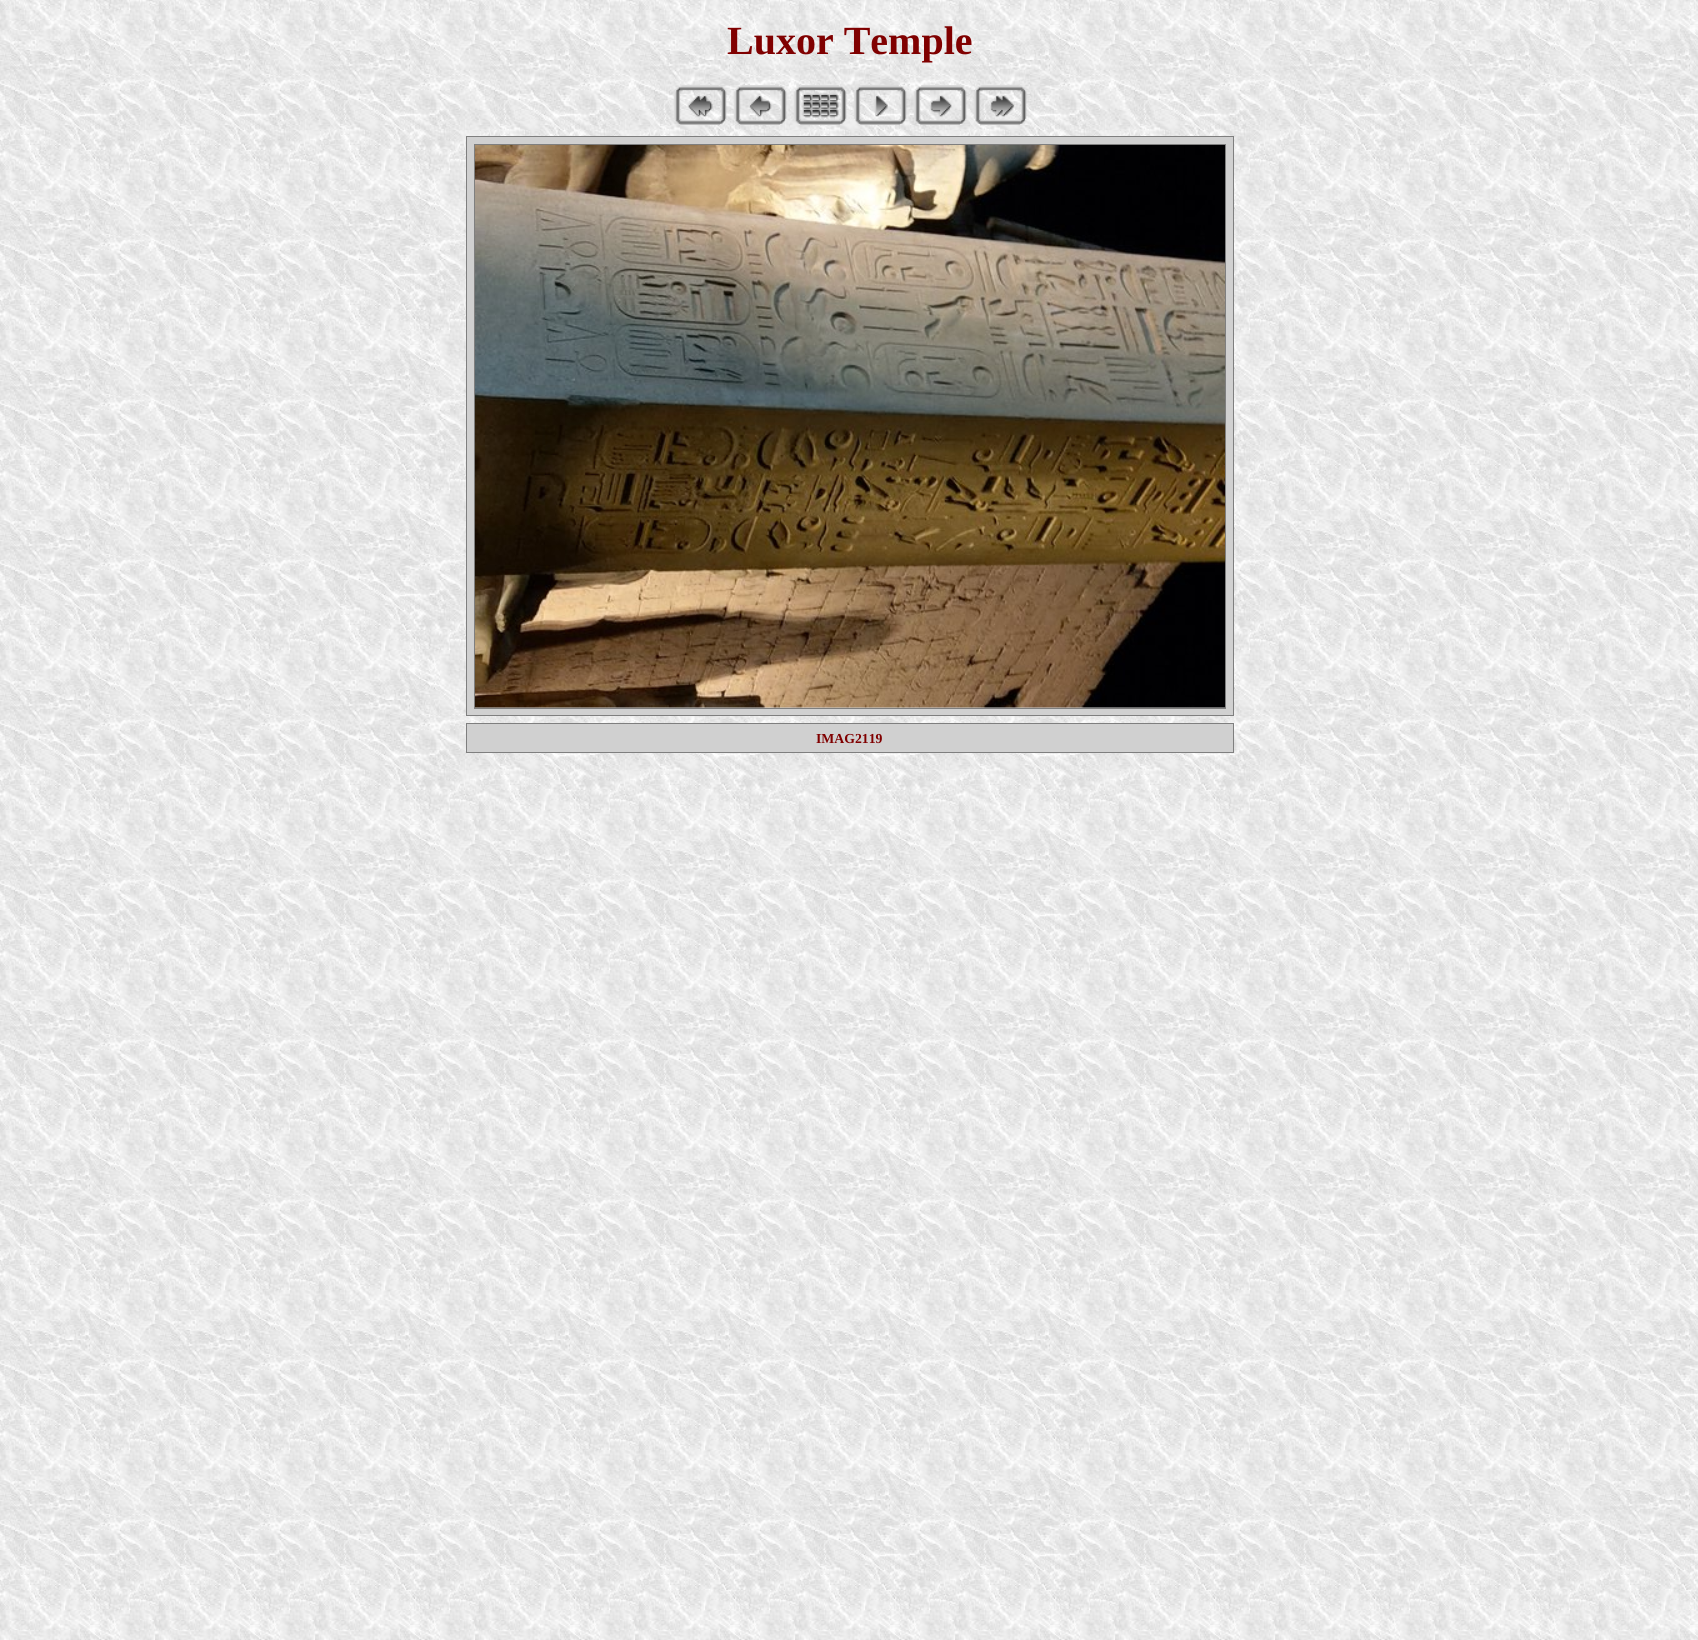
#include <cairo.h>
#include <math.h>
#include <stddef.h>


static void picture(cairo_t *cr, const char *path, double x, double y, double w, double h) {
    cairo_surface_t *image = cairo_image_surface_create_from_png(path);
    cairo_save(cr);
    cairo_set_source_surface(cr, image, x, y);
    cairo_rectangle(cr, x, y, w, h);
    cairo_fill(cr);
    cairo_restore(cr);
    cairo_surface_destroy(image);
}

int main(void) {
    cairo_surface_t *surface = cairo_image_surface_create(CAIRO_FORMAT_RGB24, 1698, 1640);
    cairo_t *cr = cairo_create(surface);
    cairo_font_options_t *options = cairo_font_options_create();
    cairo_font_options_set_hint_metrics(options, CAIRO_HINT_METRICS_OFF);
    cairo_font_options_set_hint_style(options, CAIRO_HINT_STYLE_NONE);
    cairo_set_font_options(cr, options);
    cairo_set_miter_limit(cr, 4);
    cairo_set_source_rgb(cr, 1, 1, 1);
    cairo_paint(cr);
    picture(cr, "img1.png", 0, 0, 1698, 1640);
    cairo_select_font_face(cr, "Liberation Serif", CAIRO_FONT_SLANT_NORMAL, CAIRO_FONT_WEIGHT_BOLD);
    cairo_set_font_size(cr, 40);
    cairo_set_source_rgb(cr, 0.502, 0, 0);
    cairo_move_to(cr, 727, 54);
    cairo_show_text(cr, "Luxor Temple");
    picture(cr, "img2.png", 673, 85, 54, 40);
    picture(cr, "img3.png", 733, 85, 54, 40);
    picture(cr, "img4.png", 793, 85, 54, 40);
    picture(cr, "img5.png", 853, 85, 54, 40);
    picture(cr, "img6.png", 913, 85, 54, 40);
    picture(cr, "img7.png", 973, 85, 54, 40);
    cairo_set_source_rgb(cr, 0.816, 0.816, 0.816);
    cairo_rectangle(cr, 466.5, 136.5, 767, 579);
    cairo_fill_preserve(cr);
    cairo_set_source_rgb(cr, 0.498, 0.498, 0.498);
    cairo_set_line_width(cr, 1);
    cairo_stroke(cr);
    cairo_rectangle(cr, 474.5, 144.5, 751, 564);
    cairo_stroke(cr);
    picture(cr, "img8.png", 475, 145, 750, 563);
    cairo_set_source_rgb(cr, 0.816, 0.816, 0.816);
    cairo_rectangle(cr, 466.5, 723.5, 767, 29);
    cairo_fill_preserve(cr);
    cairo_set_source_rgb(cr, 0.498, 0.498, 0.498);
    cairo_stroke(cr);
    cairo_set_font_size(cr, 13.75);
    cairo_set_source_rgb(cr, 0.502, 0, 0);
    cairo_move_to(cr, 816, 743);
    cairo_show_text(cr, "IMAG2119");
    cairo_surface_write_to_png(surface, "page.png");
    cairo_font_options_destroy(options);
    cairo_destroy(cr);
    cairo_surface_destroy(surface);
    return 0;
}
